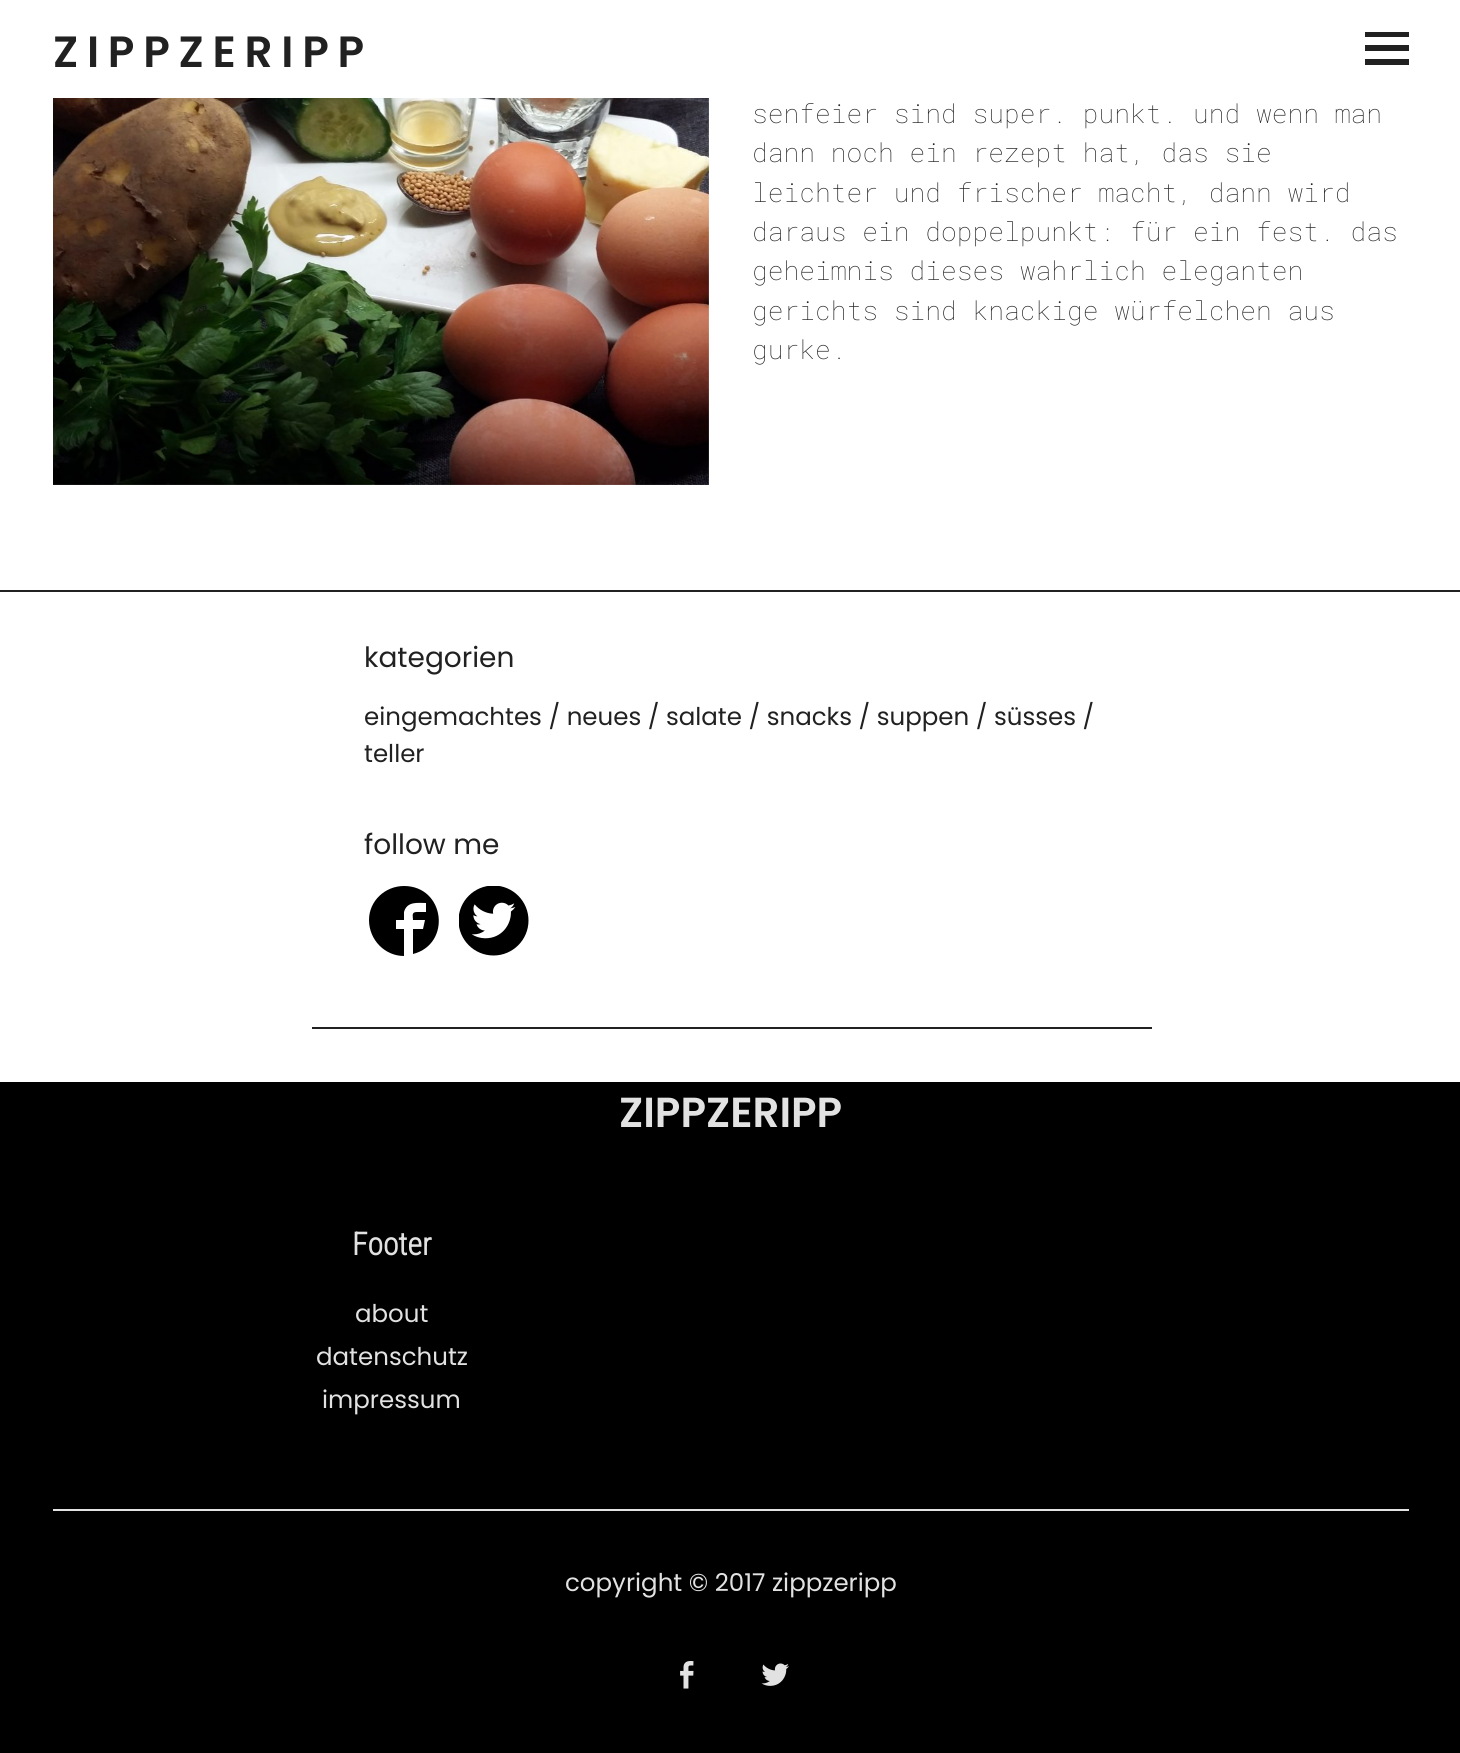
#include <cairo.h>
#include <math.h>
#include <stddef.h>


static void spaced_text(cairo_t *cr, double x, double y, const char *s, double letter, double word) {
    cairo_move_to(cr, x, y);
    while (*s) {
        char ch[5] = {0};
        int n = 0;
        do ch[n++] = *s++; while ((*s & 0xC0) == 0x80);
        cairo_show_text(cr, ch);
        cairo_rel_move_to(cr, letter + word * (*ch == ' '), 0);
    }
}

static void picture(cairo_t *cr, const char *path, double x, double y, double w, double h) {
    cairo_surface_t *image = cairo_image_surface_create_from_png(path);
    cairo_save(cr);
    cairo_set_source_surface(cr, image, x, y);
    cairo_rectangle(cr, x, y, w, h);
    cairo_fill(cr);
    cairo_restore(cr);
    cairo_surface_destroy(image);
}

int main(void) {
    cairo_surface_t *surface = cairo_image_surface_create(CAIRO_FORMAT_RGB24, 1460, 1753);
    cairo_t *cr = cairo_create(surface);
    cairo_font_options_t *options = cairo_font_options_create();
    cairo_font_options_set_hint_metrics(options, CAIRO_HINT_METRICS_OFF);
    cairo_font_options_set_hint_style(options, CAIRO_HINT_STYLE_NONE);
    cairo_set_font_options(cr, options);
    cairo_set_miter_limit(cr, 4);
    cairo_set_source_rgb(cr, 1, 1, 1);
    cairo_paint(cr);
    cairo_select_font_face(cr, "Poppins SemiBold", CAIRO_FONT_SLANT_NORMAL, CAIRO_FONT_WEIGHT_NORMAL);
    cairo_set_font_size(cr, 43.75);
    cairo_set_source_rgb(cr, 0.129, 0.129, 0.129);
    spaced_text(cr, 53, 67, "ZIPPZERIPP", 8.75, 0);
    cairo_new_path(cr);
    cairo_move_to(cr, 1365, 65);
    cairo_line_to(cr, 1365, 59);
    cairo_line_to(cr, 1409, 59);
    cairo_line_to(cr, 1409, 65);
    cairo_close_path(cr);
    cairo_move_to(cr, 1365, 32);
    cairo_line_to(cr, 1409, 32);
    cairo_line_to(cr, 1409, 37);
    cairo_line_to(cr, 1365, 37);
    cairo_close_path(cr);
    cairo_move_to(cr, 1365, 51);
    cairo_line_to(cr, 1365, 45);
    cairo_line_to(cr, 1409, 45);
    cairo_line_to(cr, 1409, 51);
    cairo_close_path(cr);
    cairo_fill(cr);
    cairo_rectangle(cr, 0, 590, 1460, 2);
    cairo_fill(cr);
    picture(cr, "img1.png", 53, 98, 656, 387);
    cairo_select_font_face(cr, "Roboto Mono Thin", CAIRO_FONT_SLANT_NORMAL, CAIRO_FONT_WEIGHT_NORMAL);
    cairo_set_font_size(cr, 26.25);
    cairo_move_to(cr, 752, 123);
    cairo_show_text(cr, "senfeier sind super. punkt. und wenn man");
    cairo_move_to(cr, 752, 162);
    cairo_show_text(cr, "dann noch ein rezept hat, das sie");
    cairo_move_to(cr, 752, 202);
    cairo_show_text(cr, "leichter und frischer macht, dann wird");
    cairo_move_to(cr, 752, 241);
    cairo_show_text(cr, "daraus ein doppelpunkt: für ein fest. das");
    cairo_move_to(cr, 752, 280);
    cairo_show_text(cr, "geheimnis dieses wahrlich eleganten");
    cairo_move_to(cr, 752, 320);
    cairo_show_text(cr, "gerichts sind knackige würfelchen aus");
    cairo_move_to(cr, 752, 359);
    cairo_show_text(cr, "gurke.");
    cairo_rectangle(cr, 312, 1027, 840, 2);
    cairo_fill(cr);
    cairo_select_font_face(cr, "Poppins", CAIRO_FONT_SLANT_NORMAL, CAIRO_FONT_WEIGHT_NORMAL);
    cairo_set_font_size(cr, 28);
    cairo_move_to(cr, 364, 667);
    cairo_show_text(cr, "kategorien");
    cairo_set_font_size(cr, 24.5);
    cairo_move_to(cr, 364, 725);
    cairo_show_text(cr, "eingemachtes / neues / salate / snacks / suppen / süsses /");
    cairo_move_to(cr, 364, 762);
    cairo_show_text(cr, "teller");
    cairo_set_font_size(cr, 28);
    cairo_move_to(cr, 364, 854);
    cairo_show_text(cr, "follow me");
    cairo_set_source_rgb(cr, 0, 0, 0);
    cairo_new_path(cr);
    cairo_move_to(cr, 404, 886);
    cairo_curve_to(cr, 385, 886, 369, 901, 369, 920);
    cairo_curve_to(cr, 369, 940, 385, 956, 404, 956);
    cairo_line_to(cr, 404, 929);
    cairo_line_to(cr, 396, 929);
    cairo_line_to(cr, 396, 920);
    cairo_line_to(cr, 404, 920);
    cairo_line_to(cr, 404, 912);
    cairo_curve_to(cr, 407, 901, 418, 903, 426, 903);
    cairo_line_to(cr, 426, 912);
    cairo_line_to(cr, 417, 912);
    cairo_curve_to(cr, 411, 912, 413, 916, 413, 920);
    cairo_line_to(cr, 425, 920);
    cairo_line_to(cr, 423, 929);
    cairo_line_to(cr, 413, 929);
    cairo_line_to(cr, 413, 954);
    cairo_curve_to(cr, 452, 944, 445, 886, 404, 886);
    cairo_close_path(cr);
    cairo_fill(cr);
    picture(cr, "img2.png", 459, 886, 70, 70);
    cairo_rectangle(cr, 0, 1082, 1460, 671);
    cairo_fill(cr);
    cairo_set_source_rgb(cr, 0.886, 0.886, 0.886);
    cairo_rectangle(cr, 53, 1509, 1356, 2);
    cairo_fill(cr);
    cairo_select_font_face(cr, "Poppins SemiBold", CAIRO_FONT_SLANT_NORMAL, CAIRO_FONT_WEIGHT_NORMAL);
    cairo_set_font_size(cr, 42);
    cairo_move_to(cr, 619, 1127);
    cairo_show_text(cr, "ZIPPZERIPP");
    cairo_select_font_face(cr, "Roboto Condensed", CAIRO_FONT_SLANT_NORMAL, CAIRO_FONT_WEIGHT_BOLD);
    cairo_set_font_size(cr, 31.5);
    cairo_move_to(cr, 352, 1255);
    cairo_show_text(cr, "Footer");
    cairo_select_font_face(cr, "Poppins", CAIRO_FONT_SLANT_NORMAL, CAIRO_FONT_WEIGHT_NORMAL);
    cairo_set_font_size(cr, 24.5);
    cairo_move_to(cr, 355, 1322);
    cairo_show_text(cr, "about");
    cairo_move_to(cr, 316, 1365);
    cairo_show_text(cr, "datenschutz");
    cairo_move_to(cr, 322, 1408);
    cairo_show_text(cr, "impressum");
    cairo_move_to(cr, 565, 1591);
    cairo_show_text(cr, "copyright © 2017 zippzeripp");
    picture(cr, "img3.png", 680, 1661, 14, 28);
    picture(cr, "img4.png", 761, 1663, 28, 23);
    cairo_surface_write_to_png(surface, "page.png");
    cairo_font_options_destroy(options);
    cairo_destroy(cr);
    cairo_surface_destroy(surface);
    return 0;
}
